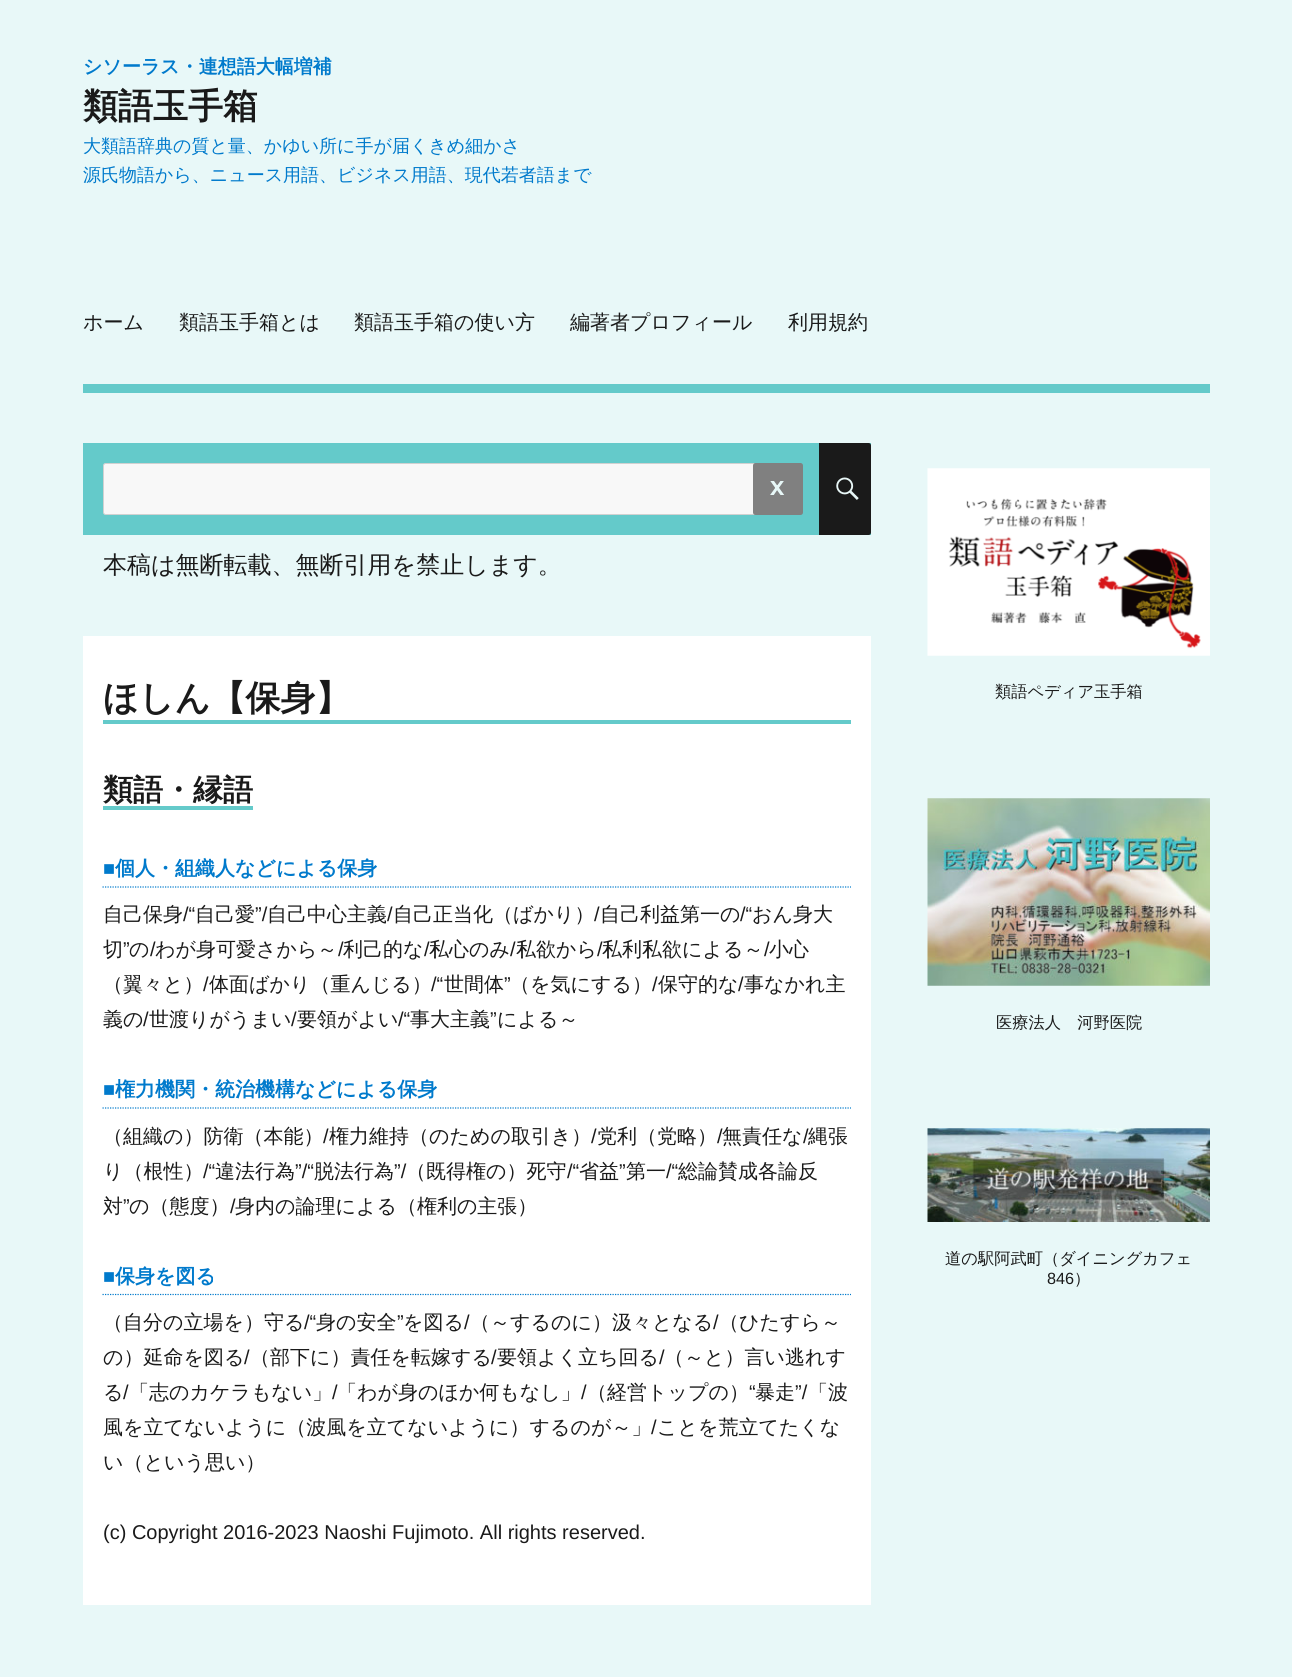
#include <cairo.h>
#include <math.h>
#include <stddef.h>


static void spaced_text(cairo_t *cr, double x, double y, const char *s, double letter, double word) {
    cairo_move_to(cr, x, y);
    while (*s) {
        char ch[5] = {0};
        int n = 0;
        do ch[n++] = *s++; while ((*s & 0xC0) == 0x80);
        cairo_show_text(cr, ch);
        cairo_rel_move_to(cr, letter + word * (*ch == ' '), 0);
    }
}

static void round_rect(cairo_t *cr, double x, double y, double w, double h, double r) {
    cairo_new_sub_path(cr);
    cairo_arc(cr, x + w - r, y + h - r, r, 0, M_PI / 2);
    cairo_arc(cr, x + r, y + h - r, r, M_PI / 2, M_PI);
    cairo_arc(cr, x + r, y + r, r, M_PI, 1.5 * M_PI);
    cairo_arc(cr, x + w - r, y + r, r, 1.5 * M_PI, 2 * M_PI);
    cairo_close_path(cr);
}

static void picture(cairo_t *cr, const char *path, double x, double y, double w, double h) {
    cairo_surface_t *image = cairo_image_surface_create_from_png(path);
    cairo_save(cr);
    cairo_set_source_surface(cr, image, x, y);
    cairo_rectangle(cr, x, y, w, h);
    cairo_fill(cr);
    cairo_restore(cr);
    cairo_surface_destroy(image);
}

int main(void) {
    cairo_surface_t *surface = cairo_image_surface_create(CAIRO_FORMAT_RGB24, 1292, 1677);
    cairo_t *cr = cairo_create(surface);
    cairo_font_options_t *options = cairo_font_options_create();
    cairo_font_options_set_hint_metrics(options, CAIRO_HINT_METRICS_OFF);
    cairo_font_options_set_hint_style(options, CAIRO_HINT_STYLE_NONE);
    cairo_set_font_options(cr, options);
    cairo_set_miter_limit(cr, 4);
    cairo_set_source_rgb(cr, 0.91, 0.969, 0.969);
    cairo_paint(cr);
    cairo_set_source_rgb(cr, 0.392, 0.792, 0.792);
    cairo_rectangle(cr, 83, 384, 1127, 9);
    cairo_fill(cr);
    cairo_select_font_face(cr, "WenQuanYi Zen Hei", CAIRO_FONT_SLANT_NORMAL, CAIRO_FONT_WEIGHT_BOLD);
    cairo_set_font_size(cr, 19);
    cairo_set_source_rgb(cr, 0, 0.478, 0.8);
    cairo_move_to(cr, 83, 73);
    cairo_show_text(cr, "シソーラス・連想語大幅増補");
    cairo_set_font_size(cr, 35);
    cairo_set_source_rgb(cr, 0.102, 0.102, 0.102);
    cairo_move_to(cr, 83, 118);
    cairo_show_text(cr, "類語玉手箱");
    cairo_select_font_face(cr, "WenQuanYi Zen Hei Medium", CAIRO_FONT_SLANT_NORMAL, CAIRO_FONT_WEIGHT_NORMAL);
    cairo_set_font_size(cr, 18);
    cairo_set_source_rgb(cr, 0, 0.478, 0.8);
    cairo_move_to(cr, 83, 152);
    cairo_show_text(cr, "大類語辞典の質と量、かゆい所に手が届くきめ細かさ");
    cairo_move_to(cr, 83, 181);
    cairo_show_text(cr, "源氏物語から、ニュース用語、ビジネス用語、現代若者語まで");
    cairo_set_font_size(cr, 20);
    cairo_set_source_rgb(cr, 0.102, 0.102, 0.102);
    cairo_move_to(cr, 83, 329);
    cairo_show_text(cr, "ホーム");
    cairo_move_to(cr, 179, 329);
    cairo_show_text(cr, "類語玉手箱とは");
    cairo_move_to(cr, 354, 329);
    cairo_show_text(cr, "類語玉手箱の使い方");
    cairo_move_to(cr, 570, 329);
    cairo_show_text(cr, "編著者プロフィール");
    cairo_move_to(cr, 788, 329);
    cairo_show_text(cr, "利用規約");
    cairo_set_source_rgb(cr, 0.392, 0.792, 0.792);
    cairo_rectangle(cr, 83, 443, 788, 92);
    cairo_fill(cr);
    cairo_set_source_rgb(cr, 0.969, 0.969, 0.969);
    cairo_new_path(cr);
    cairo_move_to(cr, 105.5, 463.5);
    cairo_line_to(cr, 798.5, 463.5);
    cairo_line_to(cr, 798.5, 514.5);
    cairo_line_to(cr, 105.5, 514.5);
    cairo_curve_to(cr, 104.5, 514.5, 103.5, 513.5, 103.5, 512.5);
    cairo_line_to(cr, 103.5, 465.5);
    cairo_curve_to(cr, 103.5, 464.5, 104.5, 463.5, 105.5, 463.5);
    cairo_close_path(cr);
    cairo_fill_preserve(cr);
    cairo_set_source_rgb(cr, 0.82, 0.82, 0.82);
    cairo_set_line_width(cr, 1);
    cairo_stroke(cr);
    cairo_set_source_rgb(cr, 0.502, 0.502, 0.502);
    round_rect(cr, 753, 463, 50, 52, 2.5);
    cairo_fill(cr);
    cairo_select_font_face(cr, "Montserrat Thin", CAIRO_FONT_SLANT_NORMAL, CAIRO_FONT_WEIGHT_NORMAL);
    cairo_set_source_rgb(cr, 0.91, 0.969, 0.969);
    spaced_text(cr, 770, 495, "X", 1, 0);
    cairo_set_source_rgb(cr, 0.102, 0.102, 0.102);
    cairo_new_path(cr);
    cairo_move_to(cr, 819, 443);
    cairo_line_to(cr, 868.5, 443);
    cairo_curve_to(cr, 870, 443, 871, 444, 871, 445.5);
    cairo_line_to(cr, 871, 532.5);
    cairo_curve_to(cr, 871, 534, 870, 535, 868.5, 535);
    cairo_line_to(cr, 819, 535);
    cairo_close_path(cr);
    cairo_fill(cr);
    picture(cr, "img1.png", 836, 477, 23, 23);
    cairo_select_font_face(cr, "WenQuanYi Zen Hei Medium", CAIRO_FONT_SLANT_NORMAL, CAIRO_FONT_WEIGHT_NORMAL);
    cairo_set_font_size(cr, 24);
    cairo_move_to(cr, 103, 573);
    cairo_show_text(cr, "本稿は無断転載、無断引用を禁止します。");
    cairo_set_source_rgb(cr, 1, 1, 1);
    cairo_rectangle(cr, 83, 636, 788, 969);
    cairo_fill(cr);
    cairo_set_source_rgb(cr, 0.392, 0.792, 0.792);
    cairo_rectangle(cr, 103, 720, 748, 4);
    cairo_fill(cr);
    cairo_select_font_face(cr, "WenQuanYi Zen Hei", CAIRO_FONT_SLANT_NORMAL, CAIRO_FONT_WEIGHT_BOLD);
    cairo_set_font_size(cr, 35);
    cairo_set_source_rgb(cr, 0.102, 0.102, 0.102);
    cairo_move_to(cr, 103, 710);
    cairo_show_text(cr, "ほしん【保身】");
    cairo_set_font_size(cr, 30);
    cairo_move_to(cr, 103, 800);
    cairo_show_text(cr, "類語・縁語");
    cairo_set_source_rgb(cr, 0.392, 0.792, 0.792);
    cairo_rectangle(cr, 103, 806, 150, 4);
    cairo_fill(cr);
    cairo_new_path(cr);
    cairo_move_to(cr, 102.5, 887);
    cairo_line_to(cr, 851, 887);
    cairo_set_source_rgb(cr, 0, 0.478, 0.8);
    cairo_set_line_width(cr, 1.2);
    cairo_set_dash(cr, (double[]){1.25, 1.25}, 2, 0);
    cairo_stroke(cr);
    cairo_select_font_face(cr, "Liberation Sans", CAIRO_FONT_SLANT_NORMAL, CAIRO_FONT_WEIGHT_BOLD);
    cairo_set_font_size(cr, 20);
    cairo_move_to(cr, 103, 875);
    cairo_show_text(cr, "■");
    cairo_select_font_face(cr, "WenQuanYi Zen Hei", CAIRO_FONT_SLANT_NORMAL, CAIRO_FONT_WEIGHT_BOLD);
    cairo_move_to(cr, 115, 875);
    cairo_show_text(cr, "個人・組織人などによる保身");
    cairo_select_font_face(cr, "WenQuanYi Zen Hei Medium", CAIRO_FONT_SLANT_NORMAL, CAIRO_FONT_WEIGHT_NORMAL);
    cairo_set_source_rgb(cr, 0.102, 0.102, 0.102);
    cairo_move_to(cr, 103, 921);
    cairo_show_text(cr, "自己保身");
    cairo_select_font_face(cr, "Liberation Sans", CAIRO_FONT_SLANT_NORMAL, CAIRO_FONT_WEIGHT_NORMAL);
    cairo_move_to(cr, 183, 921);
    cairo_show_text(cr, "/“");
    cairo_select_font_face(cr, "WenQuanYi Zen Hei Medium", CAIRO_FONT_SLANT_NORMAL, CAIRO_FONT_WEIGHT_NORMAL);
    cairo_move_to(cr, 195, 921);
    cairo_show_text(cr, "自己愛");
    cairo_select_font_face(cr, "Liberation Sans", CAIRO_FONT_SLANT_NORMAL, CAIRO_FONT_WEIGHT_NORMAL);
    cairo_move_to(cr, 255, 921);
    cairo_show_text(cr, "”/");
    cairo_select_font_face(cr, "WenQuanYi Zen Hei Medium", CAIRO_FONT_SLANT_NORMAL, CAIRO_FONT_WEIGHT_NORMAL);
    cairo_move_to(cr, 267, 921);
    cairo_show_text(cr, "自己中心主義");
    cairo_select_font_face(cr, "Liberation Sans", CAIRO_FONT_SLANT_NORMAL, CAIRO_FONT_WEIGHT_NORMAL);
    cairo_move_to(cr, 387, 921);
    cairo_show_text(cr, "/");
    cairo_select_font_face(cr, "WenQuanYi Zen Hei Medium", CAIRO_FONT_SLANT_NORMAL, CAIRO_FONT_WEIGHT_NORMAL);
    cairo_move_to(cr, 393, 921);
    cairo_show_text(cr, "自己正当化（ばかり）");
    cairo_select_font_face(cr, "Liberation Sans", CAIRO_FONT_SLANT_NORMAL, CAIRO_FONT_WEIGHT_NORMAL);
    cairo_move_to(cr, 594, 921);
    cairo_show_text(cr, "/");
    cairo_select_font_face(cr, "WenQuanYi Zen Hei Medium", CAIRO_FONT_SLANT_NORMAL, CAIRO_FONT_WEIGHT_NORMAL);
    cairo_move_to(cr, 600, 921);
    cairo_show_text(cr, "自己利益第一の");
    cairo_select_font_face(cr, "Liberation Sans", CAIRO_FONT_SLANT_NORMAL, CAIRO_FONT_WEIGHT_NORMAL);
    cairo_move_to(cr, 740, 921);
    cairo_show_text(cr, "/“");
    cairo_select_font_face(cr, "WenQuanYi Zen Hei Medium", CAIRO_FONT_SLANT_NORMAL, CAIRO_FONT_WEIGHT_NORMAL);
    cairo_move_to(cr, 752, 921);
    cairo_show_text(cr, "おん身大");
    cairo_move_to(cr, 103, 956);
    cairo_show_text(cr, "切");
    cairo_select_font_face(cr, "Liberation Sans", CAIRO_FONT_SLANT_NORMAL, CAIRO_FONT_WEIGHT_NORMAL);
    cairo_move_to(cr, 123, 956);
    cairo_show_text(cr, "”");
    cairo_select_font_face(cr, "WenQuanYi Zen Hei Medium", CAIRO_FONT_SLANT_NORMAL, CAIRO_FONT_WEIGHT_NORMAL);
    cairo_move_to(cr, 129, 956);
    cairo_show_text(cr, "の");
    cairo_select_font_face(cr, "Liberation Sans", CAIRO_FONT_SLANT_NORMAL, CAIRO_FONT_WEIGHT_NORMAL);
    cairo_move_to(cr, 150, 956);
    cairo_show_text(cr, "/");
    cairo_select_font_face(cr, "WenQuanYi Zen Hei Medium", CAIRO_FONT_SLANT_NORMAL, CAIRO_FONT_WEIGHT_NORMAL);
    cairo_move_to(cr, 155, 956);
    cairo_show_text(cr, "わが身可愛さから～");
    cairo_select_font_face(cr, "Liberation Sans", CAIRO_FONT_SLANT_NORMAL, CAIRO_FONT_WEIGHT_NORMAL);
    cairo_move_to(cr, 338, 956);
    cairo_show_text(cr, "/");
    cairo_select_font_face(cr, "WenQuanYi Zen Hei Medium", CAIRO_FONT_SLANT_NORMAL, CAIRO_FONT_WEIGHT_NORMAL);
    cairo_move_to(cr, 343, 956);
    cairo_show_text(cr, "利己的な");
    cairo_select_font_face(cr, "Liberation Sans", CAIRO_FONT_SLANT_NORMAL, CAIRO_FONT_WEIGHT_NORMAL);
    cairo_move_to(cr, 424, 956);
    cairo_show_text(cr, "/");
    cairo_select_font_face(cr, "WenQuanYi Zen Hei Medium", CAIRO_FONT_SLANT_NORMAL, CAIRO_FONT_WEIGHT_NORMAL);
    cairo_move_to(cr, 429, 956);
    cairo_show_text(cr, "私心のみ");
    cairo_select_font_face(cr, "Liberation Sans", CAIRO_FONT_SLANT_NORMAL, CAIRO_FONT_WEIGHT_NORMAL);
    cairo_move_to(cr, 510, 956);
    cairo_show_text(cr, "/");
    cairo_select_font_face(cr, "WenQuanYi Zen Hei Medium", CAIRO_FONT_SLANT_NORMAL, CAIRO_FONT_WEIGHT_NORMAL);
    cairo_move_to(cr, 516, 956);
    cairo_show_text(cr, "私欲から");
    cairo_select_font_face(cr, "Liberation Sans", CAIRO_FONT_SLANT_NORMAL, CAIRO_FONT_WEIGHT_NORMAL);
    cairo_move_to(cr, 597, 956);
    cairo_show_text(cr, "/");
    cairo_select_font_face(cr, "WenQuanYi Zen Hei Medium", CAIRO_FONT_SLANT_NORMAL, CAIRO_FONT_WEIGHT_NORMAL);
    cairo_move_to(cr, 602, 956);
    cairo_show_text(cr, "私利私欲による～");
    cairo_select_font_face(cr, "Liberation Sans", CAIRO_FONT_SLANT_NORMAL, CAIRO_FONT_WEIGHT_NORMAL);
    cairo_move_to(cr, 764, 956);
    cairo_show_text(cr, "/");
    cairo_select_font_face(cr, "WenQuanYi Zen Hei Medium", CAIRO_FONT_SLANT_NORMAL, CAIRO_FONT_WEIGHT_NORMAL);
    cairo_move_to(cr, 769, 956);
    cairo_show_text(cr, "小心");
    cairo_move_to(cr, 103, 991);
    cairo_show_text(cr, "（翼々と）");
    cairo_select_font_face(cr, "Liberation Sans", CAIRO_FONT_SLANT_NORMAL, CAIRO_FONT_WEIGHT_NORMAL);
    cairo_move_to(cr, 203, 991);
    cairo_show_text(cr, "/");
    cairo_select_font_face(cr, "WenQuanYi Zen Hei Medium", CAIRO_FONT_SLANT_NORMAL, CAIRO_FONT_WEIGHT_NORMAL);
    cairo_move_to(cr, 209, 991);
    cairo_show_text(cr, "体面ばかり（重んじる）");
    cairo_select_font_face(cr, "Liberation Sans", CAIRO_FONT_SLANT_NORMAL, CAIRO_FONT_WEIGHT_NORMAL);
    cairo_move_to(cr, 431, 991);
    cairo_show_text(cr, "/“");
    cairo_select_font_face(cr, "WenQuanYi Zen Hei Medium", CAIRO_FONT_SLANT_NORMAL, CAIRO_FONT_WEIGHT_NORMAL);
    cairo_move_to(cr, 444, 991);
    cairo_show_text(cr, "世間体");
    cairo_select_font_face(cr, "Liberation Sans", CAIRO_FONT_SLANT_NORMAL, CAIRO_FONT_WEIGHT_NORMAL);
    cairo_move_to(cr, 504, 991);
    cairo_show_text(cr, "”");
    cairo_select_font_face(cr, "WenQuanYi Zen Hei Medium", CAIRO_FONT_SLANT_NORMAL, CAIRO_FONT_WEIGHT_NORMAL);
    cairo_move_to(cr, 510, 991);
    cairo_show_text(cr, "（を気にする）");
    cairo_select_font_face(cr, "Liberation Sans", CAIRO_FONT_SLANT_NORMAL, CAIRO_FONT_WEIGHT_NORMAL);
    cairo_move_to(cr, 652, 991);
    cairo_show_text(cr, "/");
    cairo_select_font_face(cr, "WenQuanYi Zen Hei Medium", CAIRO_FONT_SLANT_NORMAL, CAIRO_FONT_WEIGHT_NORMAL);
    cairo_move_to(cr, 658, 991);
    cairo_show_text(cr, "保守的な");
    cairo_select_font_face(cr, "Liberation Sans", CAIRO_FONT_SLANT_NORMAL, CAIRO_FONT_WEIGHT_NORMAL);
    cairo_move_to(cr, 738, 991);
    cairo_show_text(cr, "/");
    cairo_select_font_face(cr, "WenQuanYi Zen Hei Medium", CAIRO_FONT_SLANT_NORMAL, CAIRO_FONT_WEIGHT_NORMAL);
    cairo_move_to(cr, 744, 991);
    cairo_show_text(cr, "事なかれ主");
    cairo_move_to(cr, 103, 1026);
    cairo_show_text(cr, "義の");
    cairo_select_font_face(cr, "Liberation Sans", CAIRO_FONT_SLANT_NORMAL, CAIRO_FONT_WEIGHT_NORMAL);
    cairo_move_to(cr, 143, 1026);
    cairo_show_text(cr, "/");
    cairo_select_font_face(cr, "WenQuanYi Zen Hei Medium", CAIRO_FONT_SLANT_NORMAL, CAIRO_FONT_WEIGHT_NORMAL);
    cairo_move_to(cr, 149, 1026);
    cairo_show_text(cr, "世渡りがうまい");
    cairo_select_font_face(cr, "Liberation Sans", CAIRO_FONT_SLANT_NORMAL, CAIRO_FONT_WEIGHT_NORMAL);
    cairo_move_to(cr, 291, 1026);
    cairo_show_text(cr, "/");
    cairo_select_font_face(cr, "WenQuanYi Zen Hei Medium", CAIRO_FONT_SLANT_NORMAL, CAIRO_FONT_WEIGHT_NORMAL);
    cairo_move_to(cr, 297, 1026);
    cairo_show_text(cr, "要領がよい");
    cairo_select_font_face(cr, "Liberation Sans", CAIRO_FONT_SLANT_NORMAL, CAIRO_FONT_WEIGHT_NORMAL);
    cairo_move_to(cr, 398, 1026);
    cairo_show_text(cr, "/“");
    cairo_select_font_face(cr, "WenQuanYi Zen Hei Medium", CAIRO_FONT_SLANT_NORMAL, CAIRO_FONT_WEIGHT_NORMAL);
    cairo_move_to(cr, 410, 1026);
    cairo_show_text(cr, "事大主義");
    cairo_select_font_face(cr, "Liberation Sans", CAIRO_FONT_SLANT_NORMAL, CAIRO_FONT_WEIGHT_NORMAL);
    cairo_move_to(cr, 490, 1026);
    cairo_show_text(cr, "”");
    cairo_select_font_face(cr, "WenQuanYi Zen Hei Medium", CAIRO_FONT_SLANT_NORMAL, CAIRO_FONT_WEIGHT_NORMAL);
    cairo_move_to(cr, 497, 1026);
    cairo_show_text(cr, "による～");
    cairo_new_path(cr);
    cairo_move_to(cr, 102.5, 1108);
    cairo_line_to(cr, 851, 1108);
    cairo_set_source_rgb(cr, 0, 0.478, 0.8);
    cairo_stroke(cr);
    cairo_select_font_face(cr, "Liberation Sans", CAIRO_FONT_SLANT_NORMAL, CAIRO_FONT_WEIGHT_BOLD);
    cairo_move_to(cr, 103, 1096);
    cairo_show_text(cr, "■");
    cairo_select_font_face(cr, "WenQuanYi Zen Hei", CAIRO_FONT_SLANT_NORMAL, CAIRO_FONT_WEIGHT_BOLD);
    cairo_move_to(cr, 115, 1096);
    cairo_show_text(cr, "権力機関・統治機構などによる保身");
    cairo_select_font_face(cr, "WenQuanYi Zen Hei Medium", CAIRO_FONT_SLANT_NORMAL, CAIRO_FONT_WEIGHT_NORMAL);
    cairo_set_source_rgb(cr, 0.102, 0.102, 0.102);
    cairo_move_to(cr, 103, 1143);
    cairo_show_text(cr, "（組織の）防衛（本能）");
    cairo_select_font_face(cr, "Liberation Sans", CAIRO_FONT_SLANT_NORMAL, CAIRO_FONT_WEIGHT_NORMAL);
    cairo_move_to(cr, 323, 1143);
    cairo_show_text(cr, "/");
    cairo_select_font_face(cr, "WenQuanYi Zen Hei Medium", CAIRO_FONT_SLANT_NORMAL, CAIRO_FONT_WEIGHT_NORMAL);
    cairo_move_to(cr, 329, 1143);
    cairo_show_text(cr, "権力維持（のための取引き）");
    cairo_select_font_face(cr, "Liberation Sans", CAIRO_FONT_SLANT_NORMAL, CAIRO_FONT_WEIGHT_NORMAL);
    cairo_move_to(cr, 591, 1143);
    cairo_show_text(cr, "/");
    cairo_select_font_face(cr, "WenQuanYi Zen Hei Medium", CAIRO_FONT_SLANT_NORMAL, CAIRO_FONT_WEIGHT_NORMAL);
    cairo_move_to(cr, 597, 1143);
    cairo_show_text(cr, "党利（党略）");
    cairo_select_font_face(cr, "Liberation Sans", CAIRO_FONT_SLANT_NORMAL, CAIRO_FONT_WEIGHT_NORMAL);
    cairo_move_to(cr, 717, 1143);
    cairo_show_text(cr, "/");
    cairo_select_font_face(cr, "WenQuanYi Zen Hei Medium", CAIRO_FONT_SLANT_NORMAL, CAIRO_FONT_WEIGHT_NORMAL);
    cairo_move_to(cr, 722, 1143);
    cairo_show_text(cr, "無責任な");
    cairo_select_font_face(cr, "Liberation Sans", CAIRO_FONT_SLANT_NORMAL, CAIRO_FONT_WEIGHT_NORMAL);
    cairo_move_to(cr, 803, 1143);
    cairo_show_text(cr, "/");
    cairo_select_font_face(cr, "WenQuanYi Zen Hei Medium", CAIRO_FONT_SLANT_NORMAL, CAIRO_FONT_WEIGHT_NORMAL);
    cairo_move_to(cr, 808, 1143);
    cairo_show_text(cr, "縄張");
    cairo_move_to(cr, 103, 1178);
    cairo_show_text(cr, "り（根性）");
    cairo_select_font_face(cr, "Liberation Sans", CAIRO_FONT_SLANT_NORMAL, CAIRO_FONT_WEIGHT_NORMAL);
    cairo_move_to(cr, 203, 1178);
    cairo_show_text(cr, "/“");
    cairo_select_font_face(cr, "WenQuanYi Zen Hei Medium", CAIRO_FONT_SLANT_NORMAL, CAIRO_FONT_WEIGHT_NORMAL);
    cairo_move_to(cr, 215, 1178);
    cairo_show_text(cr, "違法行為");
    cairo_select_font_face(cr, "Liberation Sans", CAIRO_FONT_SLANT_NORMAL, CAIRO_FONT_WEIGHT_NORMAL);
    cairo_move_to(cr, 295, 1178);
    cairo_show_text(cr, "”/“");
    cairo_select_font_face(cr, "WenQuanYi Zen Hei Medium", CAIRO_FONT_SLANT_NORMAL, CAIRO_FONT_WEIGHT_NORMAL);
    cairo_move_to(cr, 314, 1178);
    cairo_show_text(cr, "脱法行為");
    cairo_select_font_face(cr, "Liberation Sans", CAIRO_FONT_SLANT_NORMAL, CAIRO_FONT_WEIGHT_NORMAL);
    cairo_move_to(cr, 394, 1178);
    cairo_show_text(cr, "”/");
    cairo_select_font_face(cr, "WenQuanYi Zen Hei Medium", CAIRO_FONT_SLANT_NORMAL, CAIRO_FONT_WEIGHT_NORMAL);
    cairo_move_to(cr, 406, 1178);
    cairo_show_text(cr, "（既得権の）死守");
    cairo_select_font_face(cr, "Liberation Sans", CAIRO_FONT_SLANT_NORMAL, CAIRO_FONT_WEIGHT_NORMAL);
    cairo_move_to(cr, 567, 1178);
    cairo_show_text(cr, "/“");
    cairo_select_font_face(cr, "WenQuanYi Zen Hei Medium", CAIRO_FONT_SLANT_NORMAL, CAIRO_FONT_WEIGHT_NORMAL);
    cairo_move_to(cr, 579, 1178);
    cairo_show_text(cr, "省益");
    cairo_select_font_face(cr, "Liberation Sans", CAIRO_FONT_SLANT_NORMAL, CAIRO_FONT_WEIGHT_NORMAL);
    cairo_move_to(cr, 619, 1178);
    cairo_show_text(cr, "”");
    cairo_select_font_face(cr, "WenQuanYi Zen Hei Medium", CAIRO_FONT_SLANT_NORMAL, CAIRO_FONT_WEIGHT_NORMAL);
    cairo_move_to(cr, 626, 1178);
    cairo_show_text(cr, "第一");
    cairo_select_font_face(cr, "Liberation Sans", CAIRO_FONT_SLANT_NORMAL, CAIRO_FONT_WEIGHT_NORMAL);
    cairo_move_to(cr, 666, 1178);
    cairo_show_text(cr, "/“");
    cairo_select_font_face(cr, "WenQuanYi Zen Hei Medium", CAIRO_FONT_SLANT_NORMAL, CAIRO_FONT_WEIGHT_NORMAL);
    cairo_move_to(cr, 678, 1178);
    cairo_show_text(cr, "総論賛成各論反");
    cairo_move_to(cr, 103, 1213);
    cairo_show_text(cr, "対");
    cairo_select_font_face(cr, "Liberation Sans", CAIRO_FONT_SLANT_NORMAL, CAIRO_FONT_WEIGHT_NORMAL);
    cairo_move_to(cr, 123, 1213);
    cairo_show_text(cr, "”");
    cairo_select_font_face(cr, "WenQuanYi Zen Hei Medium", CAIRO_FONT_SLANT_NORMAL, CAIRO_FONT_WEIGHT_NORMAL);
    cairo_move_to(cr, 129, 1213);
    cairo_show_text(cr, "の（態度）");
    cairo_select_font_face(cr, "Liberation Sans", CAIRO_FONT_SLANT_NORMAL, CAIRO_FONT_WEIGHT_NORMAL);
    cairo_move_to(cr, 230, 1213);
    cairo_show_text(cr, "/");
    cairo_select_font_face(cr, "WenQuanYi Zen Hei Medium", CAIRO_FONT_SLANT_NORMAL, CAIRO_FONT_WEIGHT_NORMAL);
    cairo_move_to(cr, 235, 1213);
    cairo_show_text(cr, "身内の論理による（権利の主張）");
    cairo_new_path(cr);
    cairo_move_to(cr, 102.5, 1294.5);
    cairo_line_to(cr, 851, 1294.5);
    cairo_set_source_rgb(cr, 0, 0.478, 0.8);
    cairo_stroke(cr);
    cairo_select_font_face(cr, "Liberation Sans", CAIRO_FONT_SLANT_NORMAL, CAIRO_FONT_WEIGHT_BOLD);
    cairo_move_to(cr, 103, 1283);
    cairo_show_text(cr, "■");
    cairo_select_font_face(cr, "WenQuanYi Zen Hei", CAIRO_FONT_SLANT_NORMAL, CAIRO_FONT_WEIGHT_BOLD);
    cairo_move_to(cr, 115, 1283);
    cairo_show_text(cr, "保身を図る");
    cairo_select_font_face(cr, "WenQuanYi Zen Hei Medium", CAIRO_FONT_SLANT_NORMAL, CAIRO_FONT_WEIGHT_NORMAL);
    cairo_set_source_rgb(cr, 0.102, 0.102, 0.102);
    cairo_move_to(cr, 103, 1329);
    cairo_show_text(cr, "（自分の立場を）守る");
    cairo_select_font_face(cr, "Liberation Sans", CAIRO_FONT_SLANT_NORMAL, CAIRO_FONT_WEIGHT_NORMAL);
    cairo_move_to(cr, 304, 1329);
    cairo_show_text(cr, "/“");
    cairo_select_font_face(cr, "WenQuanYi Zen Hei Medium", CAIRO_FONT_SLANT_NORMAL, CAIRO_FONT_WEIGHT_NORMAL);
    cairo_move_to(cr, 316, 1329);
    cairo_show_text(cr, "身の安全");
    cairo_select_font_face(cr, "Liberation Sans", CAIRO_FONT_SLANT_NORMAL, CAIRO_FONT_WEIGHT_NORMAL);
    cairo_move_to(cr, 397, 1329);
    cairo_show_text(cr, "”");
    cairo_select_font_face(cr, "WenQuanYi Zen Hei Medium", CAIRO_FONT_SLANT_NORMAL, CAIRO_FONT_WEIGHT_NORMAL);
    cairo_move_to(cr, 403, 1329);
    cairo_show_text(cr, "を図る");
    cairo_select_font_face(cr, "Liberation Sans", CAIRO_FONT_SLANT_NORMAL, CAIRO_FONT_WEIGHT_NORMAL);
    cairo_move_to(cr, 464, 1329);
    cairo_show_text(cr, "/");
    cairo_select_font_face(cr, "WenQuanYi Zen Hei Medium", CAIRO_FONT_SLANT_NORMAL, CAIRO_FONT_WEIGHT_NORMAL);
    cairo_move_to(cr, 470, 1329);
    cairo_show_text(cr, "（～するのに）汲々となる");
    cairo_select_font_face(cr, "Liberation Sans", CAIRO_FONT_SLANT_NORMAL, CAIRO_FONT_WEIGHT_NORMAL);
    cairo_move_to(cr, 713, 1329);
    cairo_show_text(cr, "/");
    cairo_select_font_face(cr, "WenQuanYi Zen Hei Medium", CAIRO_FONT_SLANT_NORMAL, CAIRO_FONT_WEIGHT_NORMAL);
    cairo_move_to(cr, 719, 1329);
    cairo_show_text(cr, "（ひたすら～");
    cairo_move_to(cr, 103, 1364);
    cairo_show_text(cr, "の）延命を図る");
    cairo_select_font_face(cr, "Liberation Sans", CAIRO_FONT_SLANT_NORMAL, CAIRO_FONT_WEIGHT_NORMAL);
    cairo_move_to(cr, 244, 1364);
    cairo_show_text(cr, "/");
    cairo_select_font_face(cr, "WenQuanYi Zen Hei Medium", CAIRO_FONT_SLANT_NORMAL, CAIRO_FONT_WEIGHT_NORMAL);
    cairo_move_to(cr, 250, 1364);
    cairo_show_text(cr, "（部下に）責任を転嫁する");
    cairo_select_font_face(cr, "Liberation Sans", CAIRO_FONT_SLANT_NORMAL, CAIRO_FONT_WEIGHT_NORMAL);
    cairo_move_to(cr, 491, 1364);
    cairo_show_text(cr, "/");
    cairo_select_font_face(cr, "WenQuanYi Zen Hei Medium", CAIRO_FONT_SLANT_NORMAL, CAIRO_FONT_WEIGHT_NORMAL);
    cairo_move_to(cr, 497, 1364);
    cairo_show_text(cr, "要領よく立ち回る");
    cairo_select_font_face(cr, "Liberation Sans", CAIRO_FONT_SLANT_NORMAL, CAIRO_FONT_WEIGHT_NORMAL);
    cairo_move_to(cr, 659, 1364);
    cairo_show_text(cr, "/");
    cairo_select_font_face(cr, "WenQuanYi Zen Hei Medium", CAIRO_FONT_SLANT_NORMAL, CAIRO_FONT_WEIGHT_NORMAL);
    cairo_move_to(cr, 664, 1364);
    cairo_show_text(cr, "（～と）言い逃れす");
    cairo_move_to(cr, 103, 1399);
    cairo_show_text(cr, "る");
    cairo_select_font_face(cr, "Liberation Sans", CAIRO_FONT_SLANT_NORMAL, CAIRO_FONT_WEIGHT_NORMAL);
    cairo_move_to(cr, 123, 1399);
    cairo_show_text(cr, "/");
    cairo_select_font_face(cr, "WenQuanYi Zen Hei Medium", CAIRO_FONT_SLANT_NORMAL, CAIRO_FONT_WEIGHT_NORMAL);
    cairo_move_to(cr, 129, 1399);
    cairo_show_text(cr, "「志のカケラもない」");
    cairo_select_font_face(cr, "Liberation Sans", CAIRO_FONT_SLANT_NORMAL, CAIRO_FONT_WEIGHT_NORMAL);
    cairo_move_to(cr, 332, 1399);
    cairo_show_text(cr, "/");
    cairo_select_font_face(cr, "WenQuanYi Zen Hei Medium", CAIRO_FONT_SLANT_NORMAL, CAIRO_FONT_WEIGHT_NORMAL);
    cairo_move_to(cr, 337, 1399);
    cairo_show_text(cr, "「わが身のほか何もなし」");
    cairo_select_font_face(cr, "Liberation Sans", CAIRO_FONT_SLANT_NORMAL, CAIRO_FONT_WEIGHT_NORMAL);
    cairo_move_to(cr, 581, 1399);
    cairo_show_text(cr, "/");
    cairo_select_font_face(cr, "WenQuanYi Zen Hei Medium", CAIRO_FONT_SLANT_NORMAL, CAIRO_FONT_WEIGHT_NORMAL);
    cairo_move_to(cr, 587, 1399);
    cairo_show_text(cr, "（経営トップの）");
    cairo_select_font_face(cr, "Liberation Sans", CAIRO_FONT_SLANT_NORMAL, CAIRO_FONT_WEIGHT_NORMAL);
    cairo_move_to(cr, 749, 1399);
    cairo_show_text(cr, "“");
    cairo_select_font_face(cr, "WenQuanYi Zen Hei Medium", CAIRO_FONT_SLANT_NORMAL, CAIRO_FONT_WEIGHT_NORMAL);
    cairo_move_to(cr, 755, 1399);
    cairo_show_text(cr, "暴走");
    cairo_select_font_face(cr, "Liberation Sans", CAIRO_FONT_SLANT_NORMAL, CAIRO_FONT_WEIGHT_NORMAL);
    cairo_move_to(cr, 795, 1399);
    cairo_show_text(cr, "”/");
    cairo_select_font_face(cr, "WenQuanYi Zen Hei Medium", CAIRO_FONT_SLANT_NORMAL, CAIRO_FONT_WEIGHT_NORMAL);
    cairo_move_to(cr, 808, 1399);
    cairo_show_text(cr, "「波");
    cairo_move_to(cr, 103, 1434);
    cairo_show_text(cr, "風を立てないように（波風を立てないように）するのが～」");
    cairo_select_font_face(cr, "Liberation Sans", CAIRO_FONT_SLANT_NORMAL, CAIRO_FONT_WEIGHT_NORMAL);
    cairo_move_to(cr, 651, 1434);
    cairo_show_text(cr, "/");
    cairo_select_font_face(cr, "WenQuanYi Zen Hei Medium", CAIRO_FONT_SLANT_NORMAL, CAIRO_FONT_WEIGHT_NORMAL);
    cairo_move_to(cr, 657, 1434);
    cairo_show_text(cr, "ことを荒立てたくな");
    cairo_move_to(cr, 103, 1469);
    cairo_show_text(cr, "い（という思い）");
    cairo_select_font_face(cr, "Liberation Sans", CAIRO_FONT_SLANT_NORMAL, CAIRO_FONT_WEIGHT_NORMAL);
    cairo_move_to(cr, 103, 1539);
    cairo_show_text(cr, "(c) Copyright 2016-2023 Naoshi Fujimoto. All rights reserved.");
    picture(cr, "img2.png", 927, 468, 283, 188);
    cairo_select_font_face(cr, "WenQuanYi Zen Hei Medium", CAIRO_FONT_SLANT_NORMAL, CAIRO_FONT_WEIGHT_NORMAL);
    cairo_set_font_size(cr, 16.25);
    cairo_move_to(cr, 995, 697);
    cairo_show_text(cr, "類語ペディア玉手箱");
    picture(cr, "img3.png", 927, 798, 283, 188);
    cairo_move_to(cr, 996, 1028);
    cairo_show_text(cr, "医療法人　河野医院");
    picture(cr, "img4.png", 927, 1128, 283, 94);
    cairo_move_to(cr, 945, 1264);
    cairo_show_text(cr, "道の駅阿武町（ダイニングカフェ");
    cairo_select_font_face(cr, "Liberation Sans", CAIRO_FONT_SLANT_NORMAL, CAIRO_FONT_WEIGHT_NORMAL);
    cairo_move_to(cr, 1047, 1284);
    cairo_show_text(cr, "846");
    cairo_select_font_face(cr, "WenQuanYi Zen Hei Medium", CAIRO_FONT_SLANT_NORMAL, CAIRO_FONT_WEIGHT_NORMAL);
    cairo_move_to(cr, 1074, 1284);
    cairo_show_text(cr, "）");
    cairo_surface_write_to_png(surface, "page.png");
    cairo_font_options_destroy(options);
    cairo_destroy(cr);
    cairo_surface_destroy(surface);
    return 0;
}
